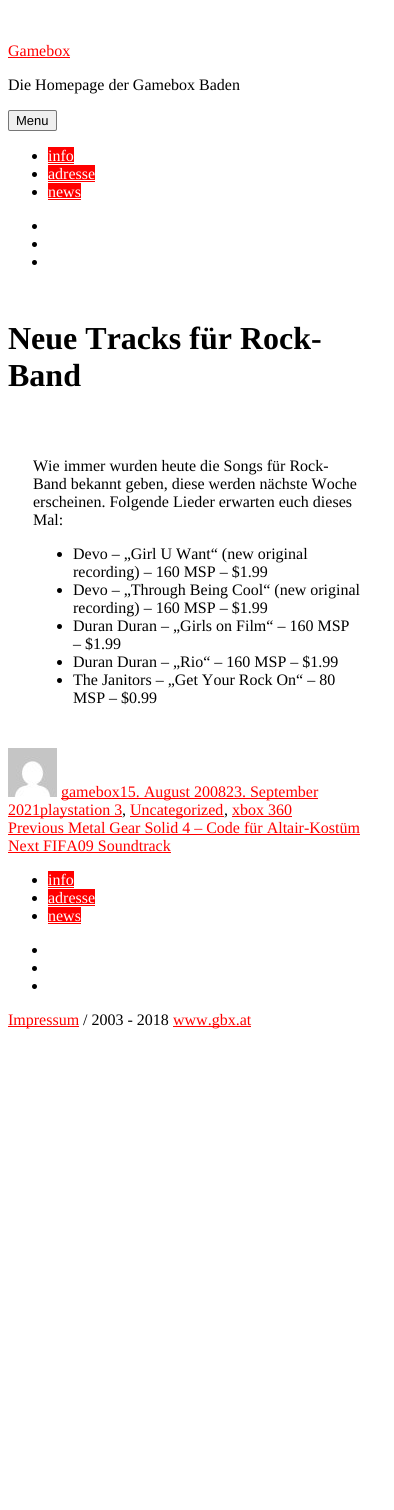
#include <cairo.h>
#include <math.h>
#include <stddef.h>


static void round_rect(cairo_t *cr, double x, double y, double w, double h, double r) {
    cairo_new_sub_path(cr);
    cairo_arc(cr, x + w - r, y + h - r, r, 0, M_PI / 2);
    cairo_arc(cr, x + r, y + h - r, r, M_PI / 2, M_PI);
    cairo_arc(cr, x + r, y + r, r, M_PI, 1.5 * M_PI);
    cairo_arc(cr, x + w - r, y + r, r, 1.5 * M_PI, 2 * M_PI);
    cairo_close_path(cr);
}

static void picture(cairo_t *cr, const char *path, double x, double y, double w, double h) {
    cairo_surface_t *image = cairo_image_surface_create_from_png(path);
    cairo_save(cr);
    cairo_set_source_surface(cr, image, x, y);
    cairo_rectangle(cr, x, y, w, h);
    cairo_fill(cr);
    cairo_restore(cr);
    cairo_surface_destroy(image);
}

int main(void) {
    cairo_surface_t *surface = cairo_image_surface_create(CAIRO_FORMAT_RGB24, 394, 1510);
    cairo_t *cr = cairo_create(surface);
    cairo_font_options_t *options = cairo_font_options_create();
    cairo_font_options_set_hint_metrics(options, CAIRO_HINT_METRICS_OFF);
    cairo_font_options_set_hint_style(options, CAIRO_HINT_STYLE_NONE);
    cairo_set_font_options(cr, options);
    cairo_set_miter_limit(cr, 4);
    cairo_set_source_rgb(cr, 1, 1, 1);
    cairo_paint(cr);
    cairo_select_font_face(cr, "Liberation Serif", CAIRO_FONT_SLANT_NORMAL, CAIRO_FONT_WEIGHT_NORMAL);
    cairo_set_font_size(cr, 16);
    cairo_set_source_rgb(cr, 1, 0, 0);
    cairo_move_to(cr, 8, 56);
    cairo_show_text(cr, "Gamebox");
    cairo_rectangle(cr, 8, 57, 62, 1);
    cairo_fill(cr);
    cairo_set_source_rgb(cr, 0, 0, 0);
    cairo_move_to(cr, 8, 90);
    cairo_show_text(cr, "Die Homepage der Gamebox Baden");
    cairo_set_source_rgb(cr, 0.937, 0.937, 0.937);
    round_rect(cr, 8.5, 110.5, 48, 20, 1.5);
    cairo_fill_preserve(cr);
    cairo_set_source_rgb(cr, 0.463, 0.463, 0.463);
    cairo_set_line_width(cr, 1);
    cairo_stroke(cr);
    cairo_select_font_face(cr, "Liberation Sans", CAIRO_FONT_SLANT_NORMAL, CAIRO_FONT_WEIGHT_NORMAL);
    cairo_set_font_size(cr, 13);
    cairo_set_source_rgb(cr, 0, 0, 0);
    cairo_move_to(cr, 16, 125);
    cairo_show_text(cr, "Menu");
    cairo_new_path(cr);
    cairo_arc(cr, 34.5, 156.5, 2.5, 0, 2 * M_PI);
    cairo_fill(cr);
    cairo_set_source_rgb(cr, 1, 0, 0);
    cairo_rectangle(cr, 48, 147, 26, 17);
    cairo_fill(cr);
    cairo_select_font_face(cr, "Liberation Serif", CAIRO_FONT_SLANT_NORMAL, CAIRO_FONT_WEIGHT_NORMAL);
    cairo_set_font_size(cr, 16);
    cairo_set_source_rgb(cr, 1, 1, 1);
    cairo_move_to(cr, 48, 161);
    cairo_show_text(cr, "info");
    cairo_rectangle(cr, 48, 162, 26, 1);
    cairo_fill(cr);
    cairo_set_source_rgb(cr, 0, 0, 0);
    cairo_arc(cr, 34.5, 174.5, 2.5, 0, 2 * M_PI);
    cairo_fill(cr);
    cairo_set_source_rgb(cr, 1, 0, 0);
    cairo_rectangle(cr, 48, 165, 47, 17);
    cairo_fill(cr);
    cairo_set_source_rgb(cr, 1, 1, 1);
    cairo_move_to(cr, 48, 179);
    cairo_show_text(cr, "adresse");
    cairo_rectangle(cr, 48, 180, 47, 1);
    cairo_fill(cr);
    cairo_set_source_rgb(cr, 0, 0, 0);
    cairo_arc(cr, 34.5, 192.5, 2.5, 0, 2 * M_PI);
    cairo_fill(cr);
    cairo_set_source_rgb(cr, 1, 0, 0);
    cairo_rectangle(cr, 48, 183, 33, 17);
    cairo_fill(cr);
    cairo_set_source_rgb(cr, 1, 1, 1);
    cairo_move_to(cr, 48, 197);
    cairo_show_text(cr, "news");
    cairo_rectangle(cr, 48, 198, 33, 1);
    cairo_fill(cr);
    cairo_set_source_rgb(cr, 0, 0, 0);
    cairo_arc(cr, 34.5, 226.5, 2.5, 0, 2 * M_PI);
    cairo_fill(cr);
    cairo_arc(cr, 34.5, 244.5, 2.5, 0, 2 * M_PI);
    cairo_fill(cr);
    cairo_arc(cr, 34.5, 262.5, 2.5, 0, 2 * M_PI);
    cairo_fill(cr);
    cairo_select_font_face(cr, "Liberation Serif", CAIRO_FONT_SLANT_NORMAL, CAIRO_FONT_WEIGHT_BOLD);
    cairo_set_font_size(cr, 32);
    cairo_move_to(cr, 8, 349);
    cairo_show_text(cr, "Neue Tracks für Rock-");
    cairo_move_to(cr, 8, 386);
    cairo_show_text(cr, "Band");
    cairo_select_font_face(cr, "Liberation Serif", CAIRO_FONT_SLANT_NORMAL, CAIRO_FONT_WEIGHT_NORMAL);
    cairo_set_font_size(cr, 16);
    cairo_move_to(cr, 33, 471);
    cairo_show_text(cr, "Wie immer wurden heute die Songs für Rock-");
    cairo_move_to(cr, 33, 489);
    cairo_show_text(cr, "Band bekannt geben, diese werden nächste Woche");
    cairo_move_to(cr, 33, 507);
    cairo_show_text(cr, "erscheinen. Folgende Lieder erwarten euch dieses");
    cairo_move_to(cr, 33, 525);
    cairo_show_text(cr, "Mal:");
    cairo_new_path(cr);
    cairo_arc(cr, 59.5, 554.5, 2.5, 0, 2 * M_PI);
    cairo_fill(cr);
    cairo_move_to(cr, 73, 559);
    cairo_show_text(cr, "Devo – „Girl U Want“ (new original");
    cairo_move_to(cr, 73, 577);
    cairo_show_text(cr, "recording) – 160 MSP – $1.99");
    cairo_new_path(cr);
    cairo_arc(cr, 59.5, 590.5, 2.5, 0, 2 * M_PI);
    cairo_fill(cr);
    cairo_move_to(cr, 73, 595);
    cairo_show_text(cr, "Devo – „Through Being Cool“ (new original");
    cairo_move_to(cr, 73, 613);
    cairo_show_text(cr, "recording) – 160 MSP – $1.99");
    cairo_new_path(cr);
    cairo_arc(cr, 59.5, 626.5, 2.5, 0, 2 * M_PI);
    cairo_fill(cr);
    cairo_move_to(cr, 73, 631);
    cairo_show_text(cr, "Duran Duran – „Girls on Film“ – 160 MSP");
    cairo_move_to(cr, 73, 649);
    cairo_show_text(cr, "– $1.99");
    cairo_new_path(cr);
    cairo_arc(cr, 59.5, 662.5, 2.5, 0, 2 * M_PI);
    cairo_fill(cr);
    cairo_move_to(cr, 73, 667);
    cairo_show_text(cr, "Duran Duran – „Rio“ – 160 MSP – $1.99");
    cairo_new_path(cr);
    cairo_arc(cr, 59.5, 680.5, 2.5, 0, 2 * M_PI);
    cairo_fill(cr);
    cairo_move_to(cr, 73, 685);
    cairo_show_text(cr, "The Janitors – „Get Your Rock On“ – 80");
    cairo_move_to(cr, 73, 703);
    cairo_show_text(cr, "MSP – $0.99");
    picture(cr, "img1.png", 8, 748, 49, 49);
    cairo_set_source_rgb(cr, 1, 0, 0);
    cairo_rectangle(cr, 61, 798, 257, 1);
    cairo_fill(cr);
    cairo_move_to(cr, 61, 797);
    cairo_show_text(cr, "gamebox15. August 200823. September");
    cairo_rectangle(cr, 8, 816, 114, 1);
    cairo_fill(cr);
    cairo_move_to(cr, 8, 815);
    cairo_show_text(cr, "2021playstation 3");
    cairo_set_source_rgb(cr, 0, 0, 0);
    cairo_move_to(cr, 122, 815);
    cairo_show_text(cr, ",");
    cairo_set_source_rgb(cr, 1, 0, 0);
    cairo_rectangle(cr, 130, 816, 94, 1);
    cairo_fill(cr);
    cairo_move_to(cr, 130, 815);
    cairo_show_text(cr, "Uncategorized");
    cairo_set_source_rgb(cr, 0, 0, 0);
    cairo_move_to(cr, 224, 815);
    cairo_show_text(cr, ",");
    cairo_set_source_rgb(cr, 1, 0, 0);
    cairo_rectangle(cr, 232, 816, 60, 1);
    cairo_fill(cr);
    cairo_move_to(cr, 232, 815);
    cairo_show_text(cr, "xbox 360");
    cairo_move_to(cr, 8, 833);
    cairo_show_text(cr, "Previous Metal Gear Solid 4 – Code für Altair-Kostüm");
    cairo_rectangle(cr, 8, 834, 352, 1);
    cairo_fill(cr);
    cairo_move_to(cr, 8, 851);
    cairo_show_text(cr, "Next FIFA09 Soundtrack");
    cairo_rectangle(cr, 8, 852, 163, 1);
    cairo_fill(cr);
    cairo_set_source_rgb(cr, 0, 0, 0);
    cairo_arc(cr, 34.5, 880.5, 2.5, 0, 2 * M_PI);
    cairo_fill(cr);
    cairo_set_source_rgb(cr, 1, 0, 0);
    cairo_rectangle(cr, 48, 871, 26, 17);
    cairo_fill(cr);
    cairo_set_source_rgb(cr, 1, 1, 1);
    cairo_move_to(cr, 48, 885);
    cairo_show_text(cr, "info");
    cairo_rectangle(cr, 48, 886, 26, 1);
    cairo_fill(cr);
    cairo_set_source_rgb(cr, 0, 0, 0);
    cairo_arc(cr, 34.5, 898.5, 2.5, 0, 2 * M_PI);
    cairo_fill(cr);
    cairo_set_source_rgb(cr, 1, 0, 0);
    cairo_rectangle(cr, 48, 889, 47, 17);
    cairo_fill(cr);
    cairo_set_source_rgb(cr, 1, 1, 1);
    cairo_move_to(cr, 48, 903);
    cairo_show_text(cr, "adresse");
    cairo_rectangle(cr, 48, 904, 47, 1);
    cairo_fill(cr);
    cairo_set_source_rgb(cr, 0, 0, 0);
    cairo_arc(cr, 34.5, 916.5, 2.5, 0, 2 * M_PI);
    cairo_fill(cr);
    cairo_set_source_rgb(cr, 1, 0, 0);
    cairo_rectangle(cr, 48, 907, 33, 17);
    cairo_fill(cr);
    cairo_set_source_rgb(cr, 1, 1, 1);
    cairo_move_to(cr, 48, 921);
    cairo_show_text(cr, "news");
    cairo_rectangle(cr, 48, 922, 33, 1);
    cairo_fill(cr);
    cairo_set_source_rgb(cr, 0, 0, 0);
    cairo_arc(cr, 34.5, 950.5, 2.5, 0, 2 * M_PI);
    cairo_fill(cr);
    cairo_arc(cr, 34.5, 968.5, 2.5, 0, 2 * M_PI);
    cairo_fill(cr);
    cairo_arc(cr, 34.5, 986.5, 2.5, 0, 2 * M_PI);
    cairo_fill(cr);
    cairo_set_source_rgb(cr, 1, 0, 0);
    cairo_rectangle(cr, 8, 1026, 71, 1);
    cairo_fill(cr);
    cairo_move_to(cr, 8, 1025);
    cairo_show_text(cr, "Impressum");
    cairo_set_source_rgb(cr, 0, 0, 0);
    cairo_move_to(cr, 83, 1025);
    cairo_show_text(cr, "/ 2003 - 2018");
    cairo_set_source_rgb(cr, 1, 0, 0);
    cairo_rectangle(cr, 173, 1026, 78, 1);
    cairo_fill(cr);
    cairo_move_to(cr, 173, 1025);
    cairo_show_text(cr, "www.gbx.at");
    cairo_surface_write_to_png(surface, "page.png");
    cairo_font_options_destroy(options);
    cairo_destroy(cr);
    cairo_surface_destroy(surface);
    return 0;
}
